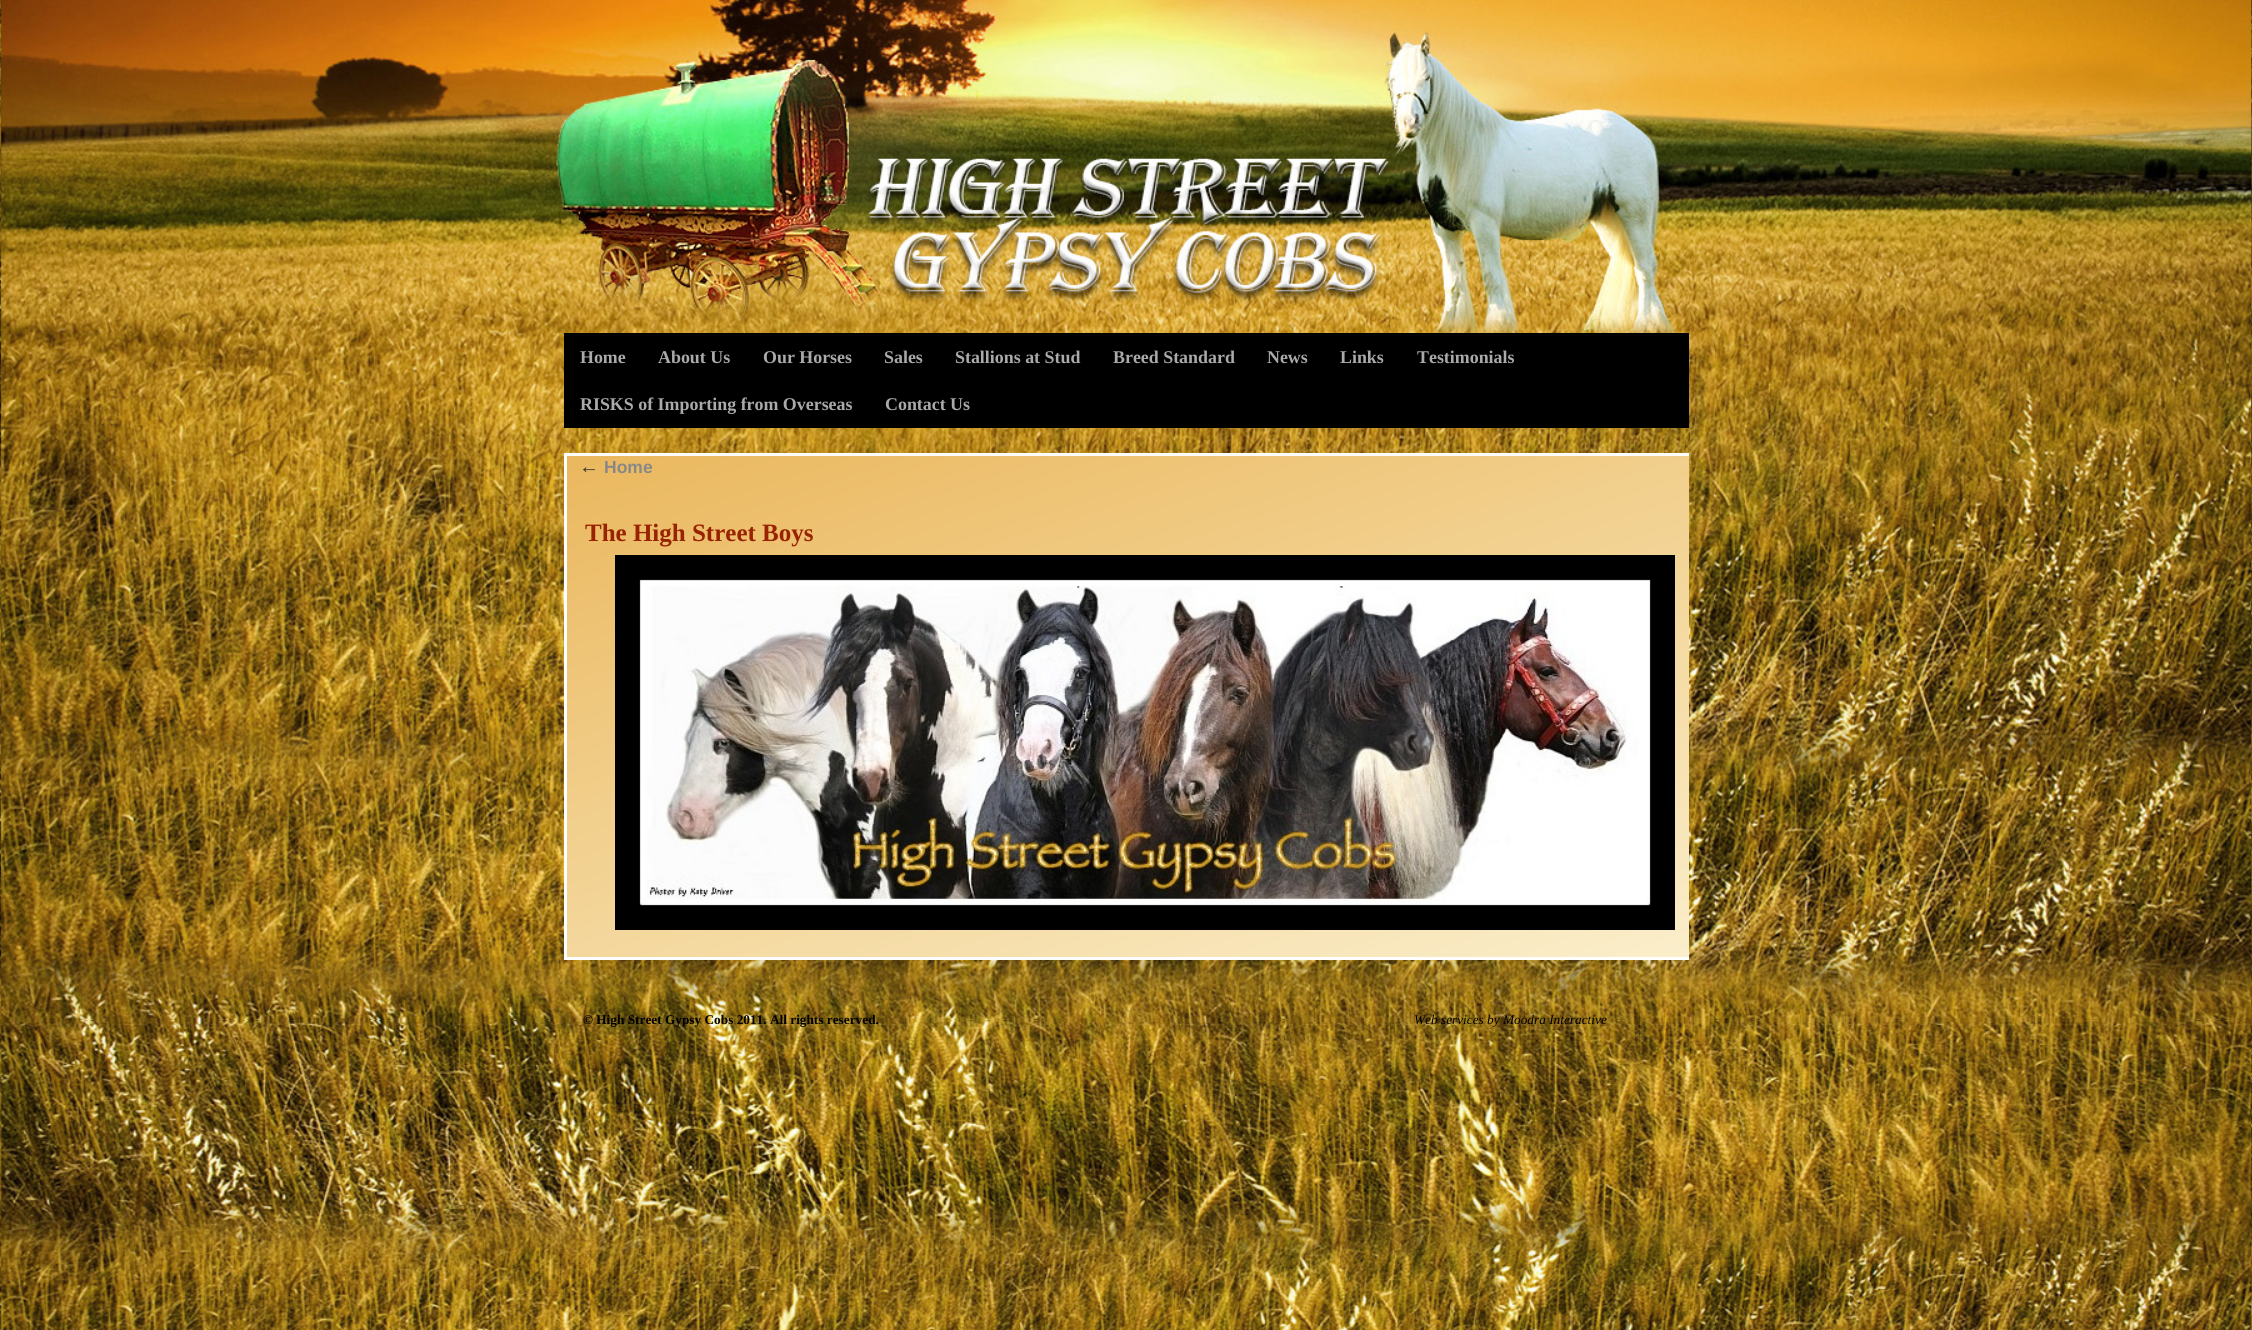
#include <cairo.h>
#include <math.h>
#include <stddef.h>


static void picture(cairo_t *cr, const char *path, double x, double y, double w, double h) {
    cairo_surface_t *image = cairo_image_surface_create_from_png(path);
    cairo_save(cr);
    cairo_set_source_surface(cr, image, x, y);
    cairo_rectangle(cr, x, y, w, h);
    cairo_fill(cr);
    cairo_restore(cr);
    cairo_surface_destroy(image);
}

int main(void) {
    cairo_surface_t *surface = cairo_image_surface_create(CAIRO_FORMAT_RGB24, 2252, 1330);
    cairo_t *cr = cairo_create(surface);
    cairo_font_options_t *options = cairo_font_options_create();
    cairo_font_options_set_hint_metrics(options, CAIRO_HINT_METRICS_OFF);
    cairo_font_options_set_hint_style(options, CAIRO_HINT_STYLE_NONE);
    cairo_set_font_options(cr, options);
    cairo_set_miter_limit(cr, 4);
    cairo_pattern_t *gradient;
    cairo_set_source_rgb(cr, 1, 1, 1);
    cairo_paint(cr);
    picture(cr, "img1.png", 0, 0, 2252, 1330);
    picture(cr, "img2.png", 1, 0, 2251, 1020);
    cairo_set_source_rgb(cr, 0, 0, 0);
    cairo_rectangle(cr, 564, 333, 1125, 95);
    cairo_fill(cr);
    cairo_select_font_face(cr, "Liberation Serif", CAIRO_FONT_SLANT_NORMAL, CAIRO_FONT_WEIGHT_BOLD);
    cairo_set_font_size(cr, 17.9);
    cairo_set_source_rgb(cr, 0.667, 0.667, 0.667);
    cairo_move_to(cr, 580, 363);
    cairo_show_text(cr, "Home");
    cairo_move_to(cr, 658, 363);
    cairo_show_text(cr, "About Us");
    cairo_move_to(cr, 763, 363);
    cairo_show_text(cr, "Our Horses");
    cairo_move_to(cr, 884, 363);
    cairo_show_text(cr, "Sales");
    cairo_move_to(cr, 955, 363);
    cairo_show_text(cr, "Stallions at Stud");
    cairo_move_to(cr, 1113, 363);
    cairo_show_text(cr, "Breed Standard");
    cairo_move_to(cr, 1267, 363);
    cairo_show_text(cr, "News");
    cairo_move_to(cr, 1340, 363);
    cairo_show_text(cr, "Links");
    cairo_move_to(cr, 1417, 363);
    cairo_show_text(cr, "Testimonials");
    cairo_move_to(cr, 580, 410);
    cairo_show_text(cr, "RISKS of Importing from Overseas");
    cairo_move_to(cr, 885, 410);
    cairo_show_text(cr, "Contact Us");
    gradient = cairo_pattern_create_linear(1271, 1105, 1012, 307);
    cairo_pattern_add_color_stop_rgba(gradient, 0, 0.984, 0.937, 0.8, 1);
    cairo_pattern_add_color_stop_rgba(gradient, 1, 0.918, 0.718, 0.365, 1);
    cairo_set_source(cr, gradient);
    cairo_pattern_destroy(gradient);
    cairo_rectangle(cr, 567, 456, 1122, 501);
    cairo_fill(cr);
    cairo_save(cr);
    cairo_rectangle(cr, 564, 428, 1125, 592);
    cairo_clip(cr);
    cairo_rectangle(cr, 565.5, 454.5, 1152, 504);
    cairo_set_source_rgb(cr, 1, 1, 1);
    cairo_set_line_width(cr, 3);
    cairo_stroke(cr);
    cairo_restore(cr);
    cairo_select_font_face(cr, "Liberation Serif", CAIRO_FONT_SLANT_ITALIC, CAIRO_FONT_WEIGHT_NORMAL);
    cairo_set_font_size(cr, 20);
    cairo_set_source_rgb(cr, 0.2, 0.2, 0.2);
    cairo_move_to(cr, 579, 473);
    cairo_show_text(cr, "←");
    cairo_select_font_face(cr, "Liberation Sans", CAIRO_FONT_SLANT_NORMAL, CAIRO_FONT_WEIGHT_BOLD);
    cairo_set_font_size(cr, 17.5);
    cairo_set_source_rgb(cr, 0.533, 0.533, 0.533);
    cairo_move_to(cr, 604, 473);
    cairo_show_text(cr, "Home");
    cairo_select_font_face(cr, "Liberation Serif", CAIRO_FONT_SLANT_NORMAL, CAIRO_FONT_WEIGHT_BOLD);
    cairo_set_font_size(cr, 25);
    cairo_set_source_rgb(cr, 0.6, 0.133, 0);
    cairo_move_to(cr, 585, 541);
    cairo_show_text(cr, "The High Street Boys");
    picture(cr, "img3.png", 615, 555, 1060, 375);
    cairo_set_font_size(cr, 13.3);
    cairo_set_source_rgb(cr, 0, 0, 0);
    cairo_move_to(cr, 583, 1024);
    cairo_show_text(cr, "© High Street Gypsy Cobs 2011. All rights reserved.");
    cairo_select_font_face(cr, "Liberation Serif", CAIRO_FONT_SLANT_ITALIC, CAIRO_FONT_WEIGHT_NORMAL);
    cairo_move_to(cr, 1414, 1024);
    cairo_show_text(cr, "Web services by Moodra Interactive");
    cairo_surface_write_to_png(surface, "page.png");
    cairo_font_options_destroy(options);
    cairo_destroy(cr);
    cairo_surface_destroy(surface);
    return 0;
}
